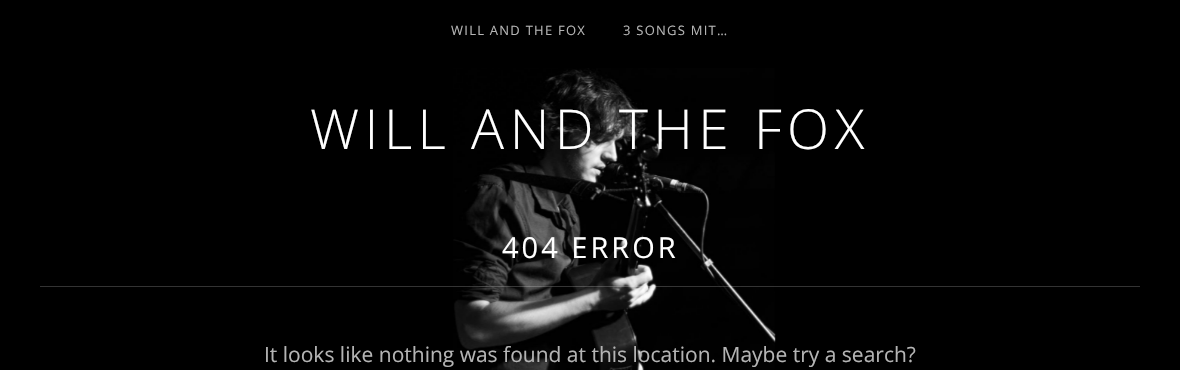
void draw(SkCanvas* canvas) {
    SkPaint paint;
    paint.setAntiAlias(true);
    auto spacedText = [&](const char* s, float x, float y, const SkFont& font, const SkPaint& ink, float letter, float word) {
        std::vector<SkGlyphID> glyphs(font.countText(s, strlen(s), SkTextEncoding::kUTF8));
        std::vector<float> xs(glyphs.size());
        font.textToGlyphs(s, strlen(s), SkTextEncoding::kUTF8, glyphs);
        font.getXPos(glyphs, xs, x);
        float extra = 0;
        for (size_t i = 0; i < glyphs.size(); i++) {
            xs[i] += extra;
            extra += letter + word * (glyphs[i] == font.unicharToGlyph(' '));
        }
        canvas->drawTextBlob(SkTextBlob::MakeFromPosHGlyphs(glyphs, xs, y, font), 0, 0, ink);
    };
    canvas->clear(0xFF000000);
    canvas->drawImageRect(SkImages::DeferredFromEncodedData(SkData::MakeFromFileName("img1.png")), SkRect::MakeXYWH(453, 68, 323, 302), SkSamplingOptions());
    SkFont font1(fontMgr->matchFamilyStyle("Open Sans", SkFontStyle::Normal()), 13);
    font1.setSubpixel(true);
    paint.setColor(0xFFB4B4B4);
    spacedText("WILL AND THE FOX", 451, 35, font1, paint, 1.25f, 0);
    spacedText("3 SONGS MIT…", 623, 35, font1, paint, 1.25f, 0);
    SkFont font2(fontMgr->matchFamilyStyle("Open Sans", SkFontStyle(300, SkFontStyle::kNormal_Width, SkFontStyle::kUpright_Slant)), 55);
    font2.setSubpixel(true);
    paint.setColor(0xFFFFFFFF);
    spacedText("WILL AND THE FOX", 310, 149, font2, paint, 5.5f, 0);
    paint.setColor(0x33FFFFFF);
    canvas->drawRect(SkRect::MakeXYWH(40, 286, 1100, 1), paint);
    SkFont font3(fontMgr->matchFamilyStyle("Open Sans", SkFontStyle::Normal()), 29);
    font3.setSubpixel(true);
    paint.setColor(0xFFFFFFFF);
    spacedText("404 ERROR", 502, 258, font3, paint, 3, 0);
    SkFont font4(fontMgr->matchFamilyStyle("Open Sans", SkFontStyle::Normal()), 21);
    font4.setSubpixel(true);
    paint.setColor(0xFFB4B4B4);
    canvas->drawString("It looks like nothing was found at this location. Maybe try a search?", 264, 362, font4, paint);
}
